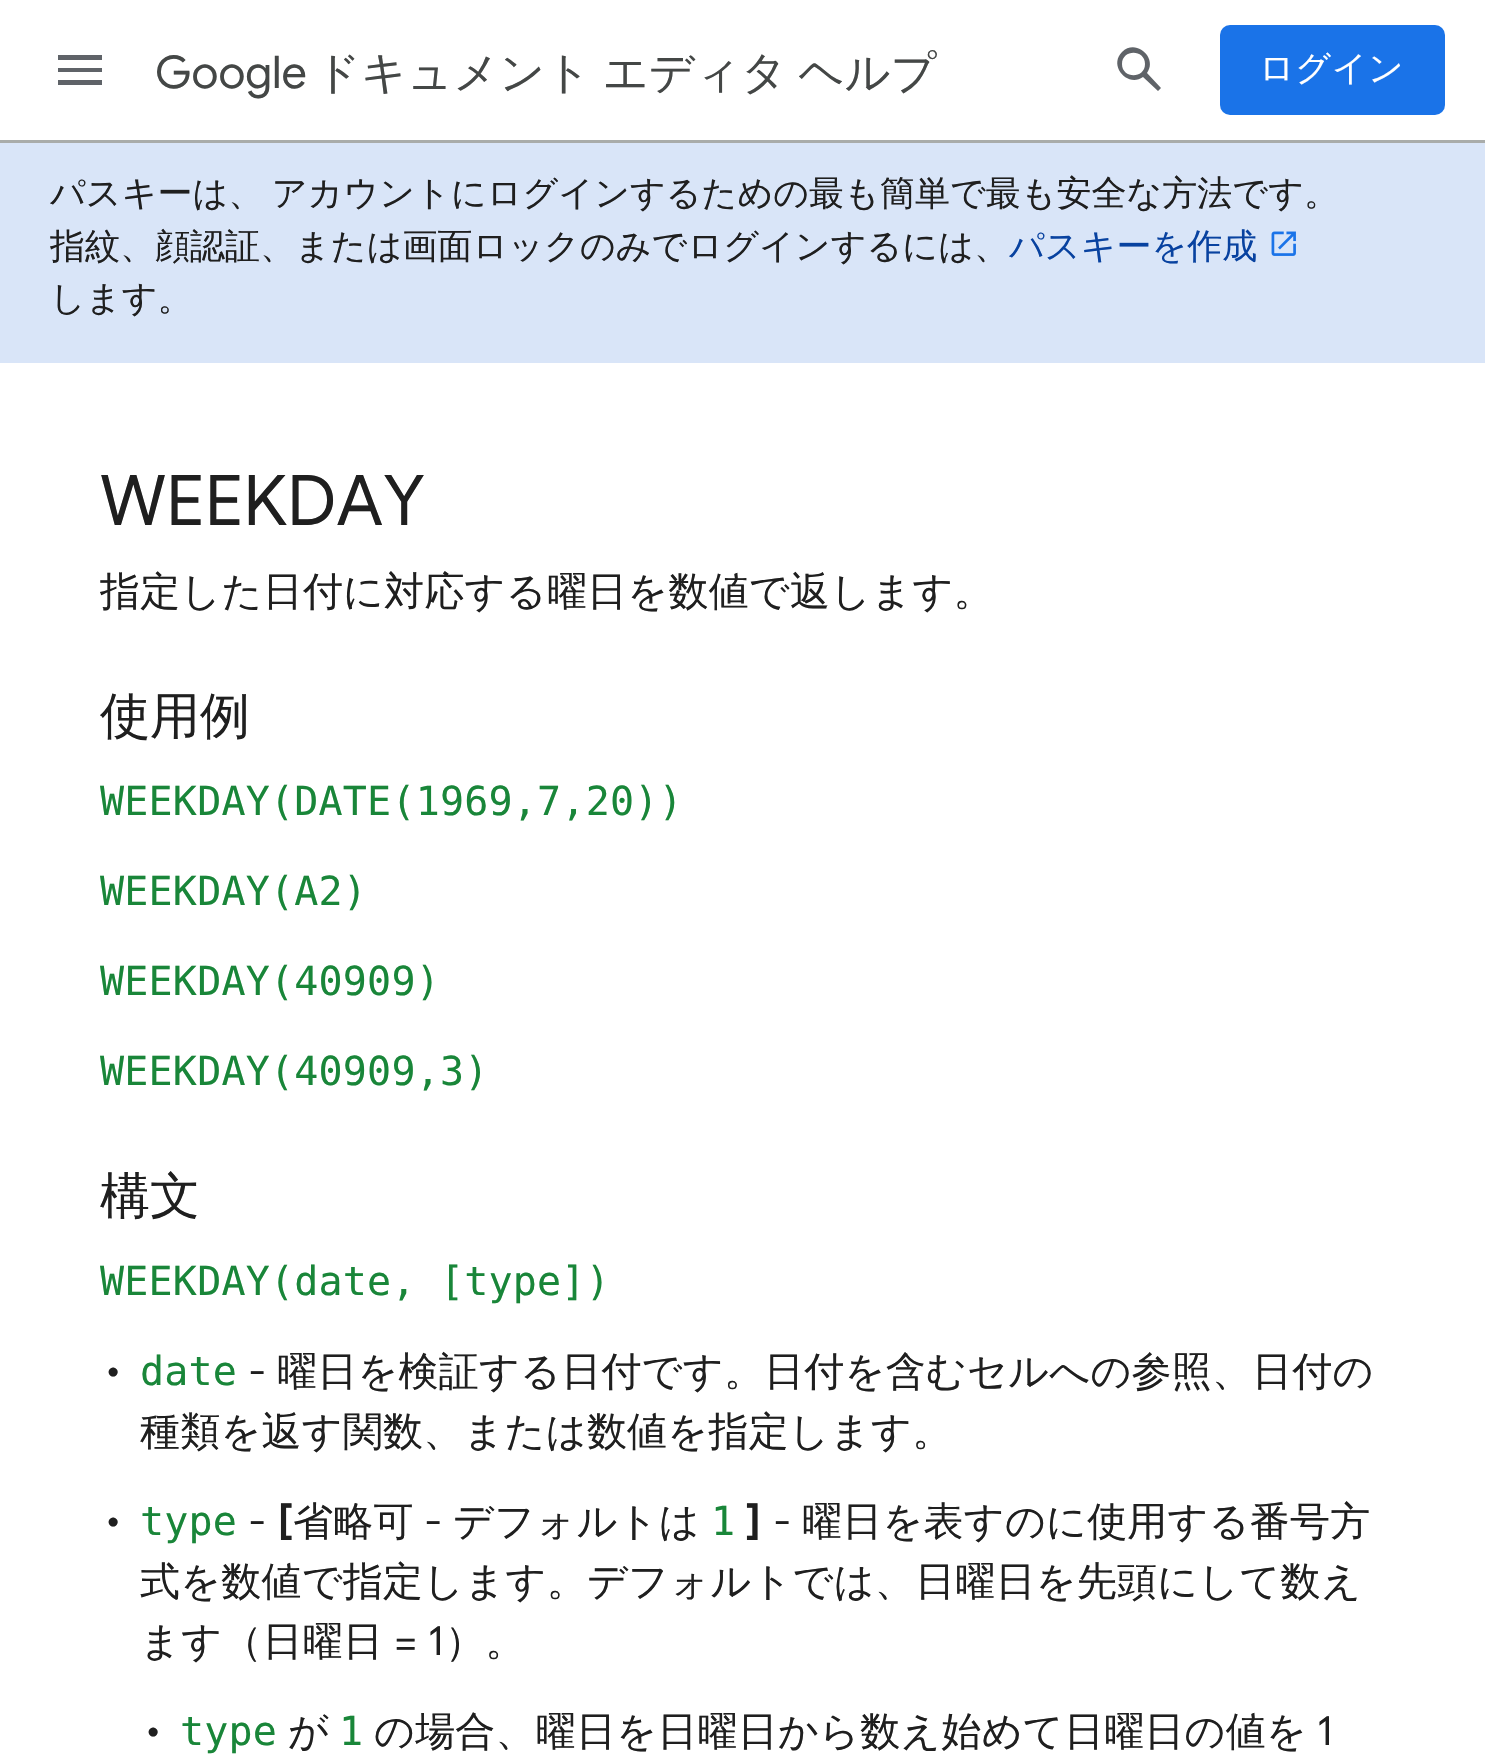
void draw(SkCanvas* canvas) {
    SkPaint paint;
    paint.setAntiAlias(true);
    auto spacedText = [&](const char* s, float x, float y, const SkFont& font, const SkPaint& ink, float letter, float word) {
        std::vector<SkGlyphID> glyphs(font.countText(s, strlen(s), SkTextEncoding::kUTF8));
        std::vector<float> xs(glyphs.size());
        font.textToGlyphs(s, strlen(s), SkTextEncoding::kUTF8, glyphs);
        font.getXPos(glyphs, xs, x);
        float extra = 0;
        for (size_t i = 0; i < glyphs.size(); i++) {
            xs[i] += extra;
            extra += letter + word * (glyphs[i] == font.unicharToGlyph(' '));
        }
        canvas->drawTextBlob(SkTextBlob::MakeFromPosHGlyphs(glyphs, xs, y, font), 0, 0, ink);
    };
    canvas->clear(0xFFFFFFFF);
    paint.setColor(0xFF5F6368);
    canvas->drawPath(SkPathBuilder().moveTo(58, 85).lineTo(102, 85).lineTo(102, 80).lineTo(58, 80).close().moveTo(58, 72).lineTo(102, 72).lineTo(102, 68).lineTo(58, 68).close().moveTo(58, 55).lineTo(58, 60).lineTo(102, 60).lineTo(102, 55).close().detach(), paint);
    SkFont font1(fontMgr->matchFamilyStyle("Google Sans", SkFontStyle::Normal()), 45);
    font1.setSubpixel(true);
    paint.setColor(0xFF444746);
    canvas->drawString("Google", 155, 88, font1, paint);
    SkFont font2(fontMgr->matchFamilyStyle("WenQuanYi Zen Hei", SkFontStyle(500, SkFontStyle::kNormal_Width, SkFontStyle::kUpright_Slant)), 45);
    font2.setSubpixel(true);
    spacedText("ドキュメント エディタ ヘルプ", 315, 88, font2, paint, 0, -2);
    paint.setColor(0xFF5F6368);
    canvas->drawPath(SkPathBuilder().moveTo(1161, 88).lineTo(1147, 73).cubicTo(1158, 58, 1136, 38, 1122, 52).cubicTo(1108, 66, 1128, 88, 1143, 77).lineTo(1158, 91).close().moveTo(1122, 64).cubicTo(1122, 49, 1145, 49, 1145, 64).cubicTo(1145, 79, 1122, 79, 1122, 64).close().detach(), paint);
    paint.setColor(0xFF1A73E8);
    canvas->drawRoundRect(SkRect::MakeXYWH(1220, 25, 225, 90), 10, 10, paint);
    SkFont font3(fontMgr->matchFamilyStyle("WenQuanYi Zen Hei", SkFontStyle(500, SkFontStyle::kNormal_Width, SkFontStyle::kUpright_Slant)), 35);
    font3.setSubpixel(true);
    paint.setColor(0xFFFFFFFF);
    spacedText("ログイン", 1259, 80, font3, paint, 0.5f, 0);
    paint.setColor(0xFFA9ACAA);
    canvas->drawRect(SkRect::MakeXYWH(0, 140, 1485, 3), paint);
    paint.setColor(0xFFD9E5F8);
    canvas->drawRect(SkRect::MakeXYWH(0, 143, 1485, 220), paint);
    paint.setColor(0xFF1F1F1F);
    spacedText("パスキーは、 アカウントにログインするための最も簡単で最も安全な方法です。", 50, 205, font3, paint, 0, -2);
    canvas->drawString("指紋、顔認証、または画面ロックのみでログインするには、", 50, 258, font3, paint);
    paint.setColor(0xFF0842A0);
    canvas->drawString("パスキーを作成", 1009, 258, font3, paint);
    canvas->drawImageRect(SkImages::DeferredFromEncodedData(SkData::MakeFromFileName("img1.png")), SkRect::MakeXYWH(1271, 231, 25, 25), SkSamplingOptions());
    paint.setColor(0xFF1F1F1F);
    canvas->drawString("します。", 50, 310, font3, paint);
    SkFont font4(fontMgr->matchFamilyStyle("Google Sans", SkFontStyle::Normal()), 70);
    font4.setSubpixel(true);
    canvas->drawString("WEEKDAY", 100, 525, font4, paint);
    SkFont font5(fontMgr->matchFamilyStyle("WenQuanYi Zen Hei", SkFontStyle(500, SkFontStyle::kNormal_Width, SkFontStyle::kUpright_Slant)), 40);
    font5.setSubpixel(true);
    spacedText("指定した日付に対応する曜日を数値で返します。", 100, 605, font5, paint, 0.2f, 0);
    SkFont font6(fontMgr->matchFamilyStyle("WenQuanYi Zen Hei", SkFontStyle(500, SkFontStyle::kNormal_Width, SkFontStyle::kUpright_Slant)), 50);
    font6.setSubpixel(true);
    canvas->drawString("使用例", 100, 733, font6, paint);
    SkFont font7(fontMgr->matchFamilyStyle("DejaVu Sans Mono", SkFontStyle::Normal()), 40);
    font7.setSubpixel(true);
    paint.setColor(0xFF198639);
    spacedText("WEEKDAY(DATE(1969,7,20))", 100, 815, font7, paint, 0.2f, 0);
    spacedText("WEEKDAY(A2)", 100, 905, font7, paint, 0.2f, 0);
    spacedText("WEEKDAY(40909)", 100, 995, font7, paint, 0.2f, 0);
    spacedText("WEEKDAY(40909,3)", 100, 1085, font7, paint, 0.2f, 0);
    paint.setColor(0xFF1F1F1F);
    canvas->drawString("構文", 100, 1213, font6, paint);
    paint.setColor(0xFF198639);
    spacedText("WEEKDAY(date, [type])", 100, 1295, font7, paint, 0.2f, 0);
    SkFont font8(fontMgr->matchFamilyStyle("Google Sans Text", SkFontStyle::Normal()), 40);
    font8.setSubpixel(true);
    paint.setColor(0xFF1F1F1F);
    spacedText("•", 105, 1385, font8, paint, 0.2f, 0);
    paint.setColor(0xFF198639);
    spacedText("date", 140, 1385, font7, paint, 0.2f, 0);
    paint.setColor(0xFF1F1F1F);
    spacedText("-", 248, 1385, font8, paint, 0.2f, 0);
    spacedText("曜日を検証する日付です。日付を含むセルへの参照、日付の", 277, 1385, font5, paint, 0.2f, 0);
    spacedText("種類を返す関数、または数値を指定します。", 140, 1445, font5, paint, 0.2f, 0);
    spacedText("•", 105, 1535, font8, paint, 0.2f, 0);
    paint.setColor(0xFF198639);
    spacedText("type", 140, 1535, font7, paint, 0.2f, 0);
    paint.setColor(0xFF1F1F1F);
    spacedText("-", 248, 1535, font8, paint, 0.2f, 0);
    SkFont font9(fontMgr->matchFamilyStyle("Google Sans Text", SkFontStyle::Bold()), 40);
    font9.setSubpixel(true);
    spacedText("[", 277, 1535, font9, paint, 0.2f, 0);
    spacedText("省略可", 293, 1535, font5, paint, 0.2f, 0);
    spacedText("-", 424, 1535, font8, paint, 0.2f, 0);
    spacedText("デフォルトは", 453, 1535, font5, paint, 0.2f, 0);
    paint.setColor(0xFF198639);
    spacedText("1", 711, 1535, font7, paint, 0.2f, 0);
    paint.setColor(0xFF1F1F1F);
    spacedText("]", 745, 1535, font9, paint, 0.2f, 0);
    spacedText("-", 773, 1535, font8, paint, 0.2f, 0);
    spacedText("曜日を表すのに使用する番号方", 802, 1535, font5, paint, 0.2f, 0);
    spacedText("式を数値で指定します。デフォルトでは、日曜日を先頭にして数え", 140, 1595, font5, paint, 0.2f, 0);
    spacedText("ます（日曜日", 140, 1655, font5, paint, 0.2f, 0);
    spacedText("= 1", 394, 1655, font8, paint, 0.2f, 0);
    spacedText("）。", 445, 1655, font5, paint, 0.2f, 0);
    spacedText("•", 145, 1745, font8, paint, 0.2f, 0);
    paint.setColor(0xFF198639);
    spacedText("type", 180, 1745, font7, paint, 0.2f, 0);
    paint.setColor(0xFF1F1F1F);
    spacedText("が", 288, 1745, font5, paint, 0.2f, 0);
    paint.setColor(0xFF198639);
    spacedText("1", 339, 1745, font7, paint, 0.2f, 0);
    paint.setColor(0xFF1F1F1F);
    spacedText("の場合、曜日を日曜日から数え始めて日曜日の値を", 374, 1745, font5, paint, 0.2f, 0);
    spacedText("1", 1317, 1745, font8, paint, 0.2f, 0);
}
